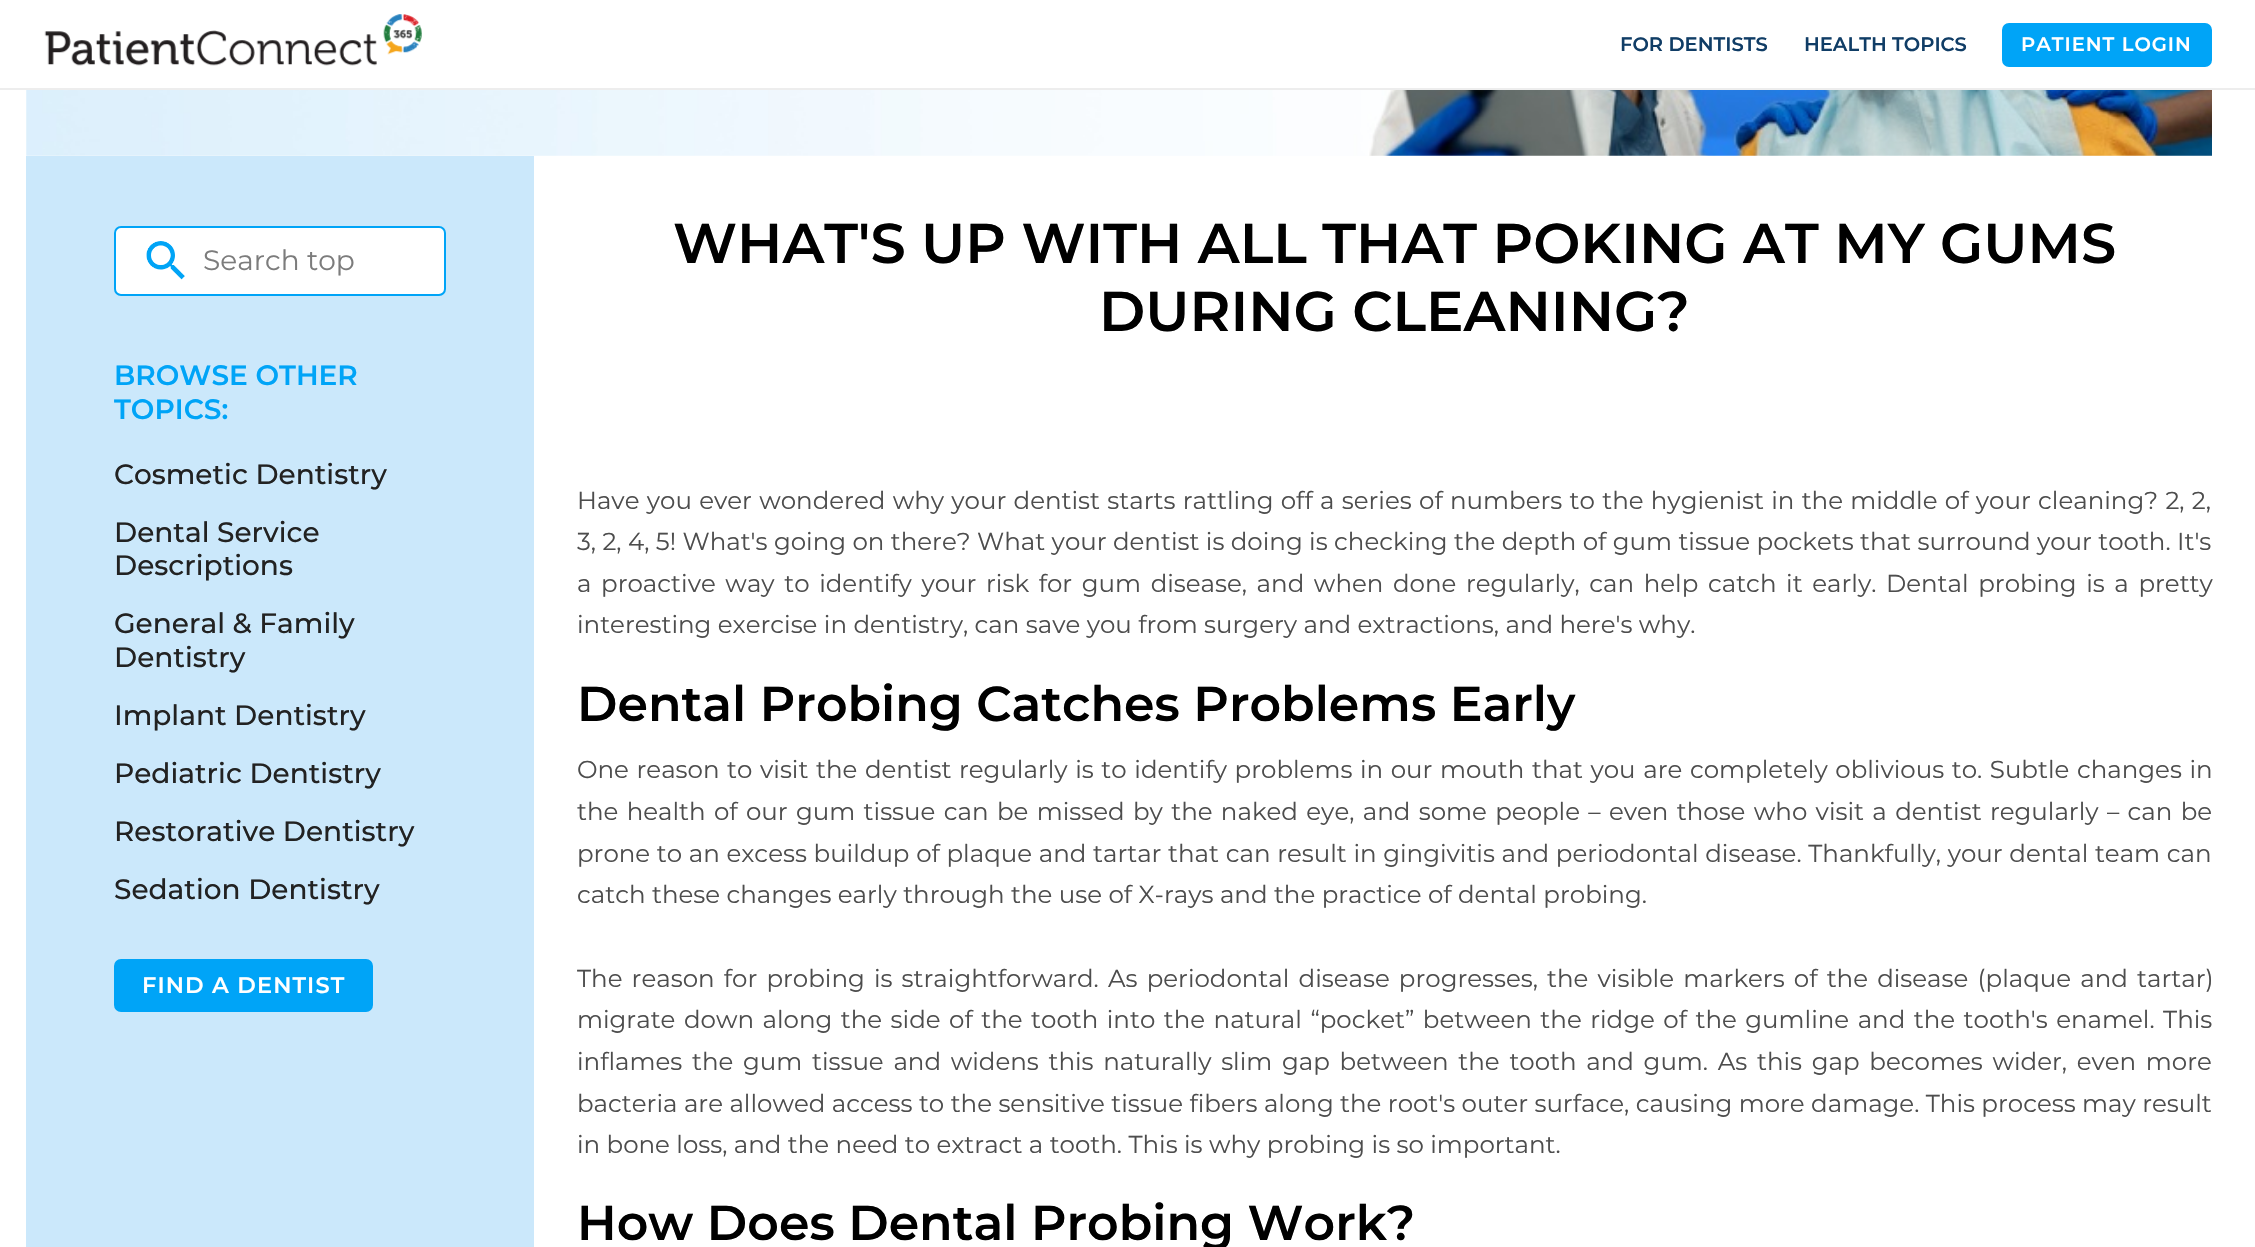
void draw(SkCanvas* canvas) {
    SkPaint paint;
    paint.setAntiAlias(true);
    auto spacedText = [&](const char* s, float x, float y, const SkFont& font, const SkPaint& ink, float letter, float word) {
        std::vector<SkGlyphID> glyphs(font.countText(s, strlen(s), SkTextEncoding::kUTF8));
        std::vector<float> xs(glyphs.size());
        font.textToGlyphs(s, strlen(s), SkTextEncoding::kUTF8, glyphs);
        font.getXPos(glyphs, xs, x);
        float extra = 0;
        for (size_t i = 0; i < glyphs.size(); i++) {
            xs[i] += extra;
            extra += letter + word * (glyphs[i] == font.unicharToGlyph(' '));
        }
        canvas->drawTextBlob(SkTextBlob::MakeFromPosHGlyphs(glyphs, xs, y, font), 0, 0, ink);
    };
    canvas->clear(0xFFFFFFFF);
    paint.setColor(0xFFEDEDED);
    canvas->drawRect(SkRect::MakeXYWH(0, 88, 2255, 2), paint);
    canvas->drawImageRect(SkImages::DeferredFromEncodedData(SkData::MakeFromFileName("img1.png")), SkRect::MakeXYWH(44, 14, 378, 52), SkSamplingOptions());
    SkFont font1(fontMgr->matchFamilyStyle("Montserrat", SkFontStyle(600, SkFontStyle::kNormal_Width, SkFontStyle::kUpright_Slant)), 19.5f);
    font1.setSubpixel(true);
    paint.setColor(0xFF103D66);
    canvas->drawString("FOR DENTISTS", 1620, 51, font1, paint);
    canvas->drawString("HEALTH TOPICS", 1804, 51, font1, paint);
    paint.setColor(0xFF00A4F7);
    canvas->drawRoundRect(SkRect::MakeXYWH(2003, 24, 208, 42), 6, 6, paint);
    paint.setStyle(SkPaint::kStroke_Style);
    paint.setStrokeWidth(2);
    canvas->drawRoundRect(SkRect::MakeXYWH(2003, 24, 208, 42), 6, 6, paint);
    paint.setStyle(SkPaint::kFill_Style);
    paint.setColor(0xFFFFFFFF);
    spacedText("PATIENT LOGIN", 2021, 51, font1, paint, 1, 0);
    canvas->drawImageRect(SkImages::DeferredFromEncodedData(SkData::MakeFromFileName("img2.png")), SkRect::MakeXYWH(26, 90, 2186, 66), SkSamplingOptions());
    paint.setColor(0xFFCBE8FB);
    canvas->drawRect(SkRect::MakeXYWH(26, 156, 508, 1091), paint);
    paint.setColor(0xFFFFFFFF);
    canvas->drawRoundRect(SkRect::MakeXYWH(115, 227, 330, 68), 6, 6, paint);
    paint.setStyle(SkPaint::kStroke_Style);
    paint.setColor(0xFF00A4F7);
    canvas->drawRoundRect(SkRect::MakeXYWH(115, 227, 330, 68), 6, 6, paint);
    canvas->drawImageRect(SkImages::DeferredFromEncodedData(SkData::MakeFromFileName("img3.png")), SkRect::MakeXYWH(146, 241, 39, 39), SkSamplingOptions());
    SkFont font2(fontMgr->matchFamilyStyle("Montserrat", SkFontStyle::Normal()), 28);
    font2.setSubpixel(true);
    paint.setStyle(SkPaint::kFill_Style);
    paint.setColor(0xFF7C7C7C);
    canvas->drawString("Search top", 203, 270, font2, paint);
    SkFont font3(fontMgr->matchFamilyStyle("Montserrat", SkFontStyle(600, SkFontStyle::kNormal_Width, SkFontStyle::kUpright_Slant)), 28);
    font3.setSubpixel(true);
    paint.setColor(0xFF00A4F7);
    canvas->drawString("BROWSE OTHER", 114, 385, font3, paint);
    canvas->drawString("TOPICS:", 114, 419, font3, paint);
    SkFont font4(fontMgr->matchFamilyStyle("Montserrat", SkFontStyle(500, SkFontStyle::kNormal_Width, SkFontStyle::kUpright_Slant)), 28);
    font4.setSubpixel(true);
    paint.setColor(0xFF222222);
    canvas->drawString("Cosmetic Dentistry", 114, 484, font4, paint);
    canvas->drawString("Dental Service", 114, 542, font4, paint);
    canvas->drawString("Descriptions", 114, 575, font4, paint);
    canvas->drawString("General & Family", 114, 633, font4, paint);
    canvas->drawString("Dentistry", 114, 667, font4, paint);
    canvas->drawString("Implant Dentistry", 114, 725, font4, paint);
    canvas->drawString("Pediatric Dentistry", 114, 783, font4, paint);
    canvas->drawString("Restorative Dentistry", 114, 841, font4, paint);
    canvas->drawString("Sedation Dentistry", 114, 899, font4, paint);
    paint.setColor(0xFF00A4F7);
    canvas->drawRoundRect(SkRect::MakeXYWH(115, 960, 257, 51), 6, 6, paint);
    paint.setStyle(SkPaint::kStroke_Style);
    canvas->drawRoundRect(SkRect::MakeXYWH(115, 960, 257, 51), 6, 6, paint);
    SkFont font5(fontMgr->matchFamilyStyle("Montserrat", SkFontStyle(600, SkFontStyle::kNormal_Width, SkFontStyle::kUpright_Slant)), 22.5f);
    font5.setSubpixel(true);
    paint.setStyle(SkPaint::kFill_Style);
    paint.setColor(0xFFFFFFFF);
    spacedText("FIND A DENTIST", 142, 993, font5, paint, 1.1f, 0);
    SkFont font6(fontMgr->matchFamilyStyle("Montserrat", SkFontStyle(600, SkFontStyle::kNormal_Width, SkFontStyle::kUpright_Slant)), 56);
    font6.setSubpixel(true);
    paint.setColor(0xFF000000);
    canvas->drawString("WHAT'S UP WITH ALL THAT POKING AT MY GUMS", 673, 263, font6, paint);
    canvas->drawString("DURING CLEANING?", 1099, 331, font6, paint);
    SkFont font7(fontMgr->matchFamilyStyle("Montserrat", SkFontStyle::Normal()), 24.5f);
    font7.setSubpixel(true);
    paint.setColor(0xFF4D4D4D);
    spacedText("Have you ever wondered why your dentist starts rattling off a series of numbers to the hygienist in the middle of your cleaning? 2, 2,", 577, 509, font7, paint, 0, 0.9f);
    canvas->drawString("3, 2, 4, 5! What's going on there? What your dentist is doing is checking the depth of gum tissue pockets that surround your tooth. It's", 577, 550, font7, paint);
    spacedText("a proactive way to identify your risk for gum disease, and when done regularly, can help catch it early. Dental probing is a pretty", 577, 592, font7, paint, 0, 3.2f);
    canvas->drawString("interesting exercise in dentistry, can save you from surgery and extractions, and here's why.", 577, 633, font7, paint);
    SkFont font8(fontMgr->matchFamilyStyle("Montserrat", SkFontStyle(600, SkFontStyle::kNormal_Width, SkFontStyle::kUpright_Slant)), 49);
    font8.setSubpixel(true);
    paint.setColor(0xFF000000);
    canvas->drawString("Dental Probing Catches Problems Early", 577, 721, font8, paint);
    paint.setColor(0xFF4D4D4D);
    spacedText("One reason to visit the dentist regularly is to identify problems in our mouth that you are completely oblivious to. Subtle changes in", 577, 778, font7, paint, 0, 1.2f);
    spacedText("the health of our gum tissue can be missed by the naked eye, and some people – even those who visit a dentist regularly – can be", 577, 820, font7, paint, 0, 1.95f);
    spacedText("prone to an excess buildup of plaque and tartar that can result in gingivitis and periodontal disease. Thankfully, your dental team can", 577, 862, font7, paint, 0, 0.25f);
    canvas->drawString("catch these changes early through the use of X-rays and the practice of dental probing.", 577, 903, font7, paint);
    spacedText("The reason for probing is straightforward. As periodontal disease progresses, the visible markers of the disease (plaque and tartar)", 577, 987, font7, paint, 0, 2.75f);
    spacedText("migrate down along the side of the tooth into the natural “pocket” between the ridge of the gumline and the tooth's enamel. This", 577, 1028, font7, paint, 0, 2.1f);
    spacedText("inflames the gum tissue and widens this naturally slim gap between the tooth and gum. As this gap becomes wider, even more", 577, 1070, font7, paint, 0, 3.3f);
    canvas->drawString("bacteria are allowed access to the sensitive tissue fibers along the root's outer surface, causing more damage. This process may result", 577, 1112, font7, paint);
    canvas->drawString("in bone loss, and the need to extract a tooth. This is why probing is so important.", 577, 1153, font7, paint);
    paint.setColor(0xFF000000);
    canvas->drawString("How Does Dental Probing Work?", 577, 1240, font8, paint);
}
